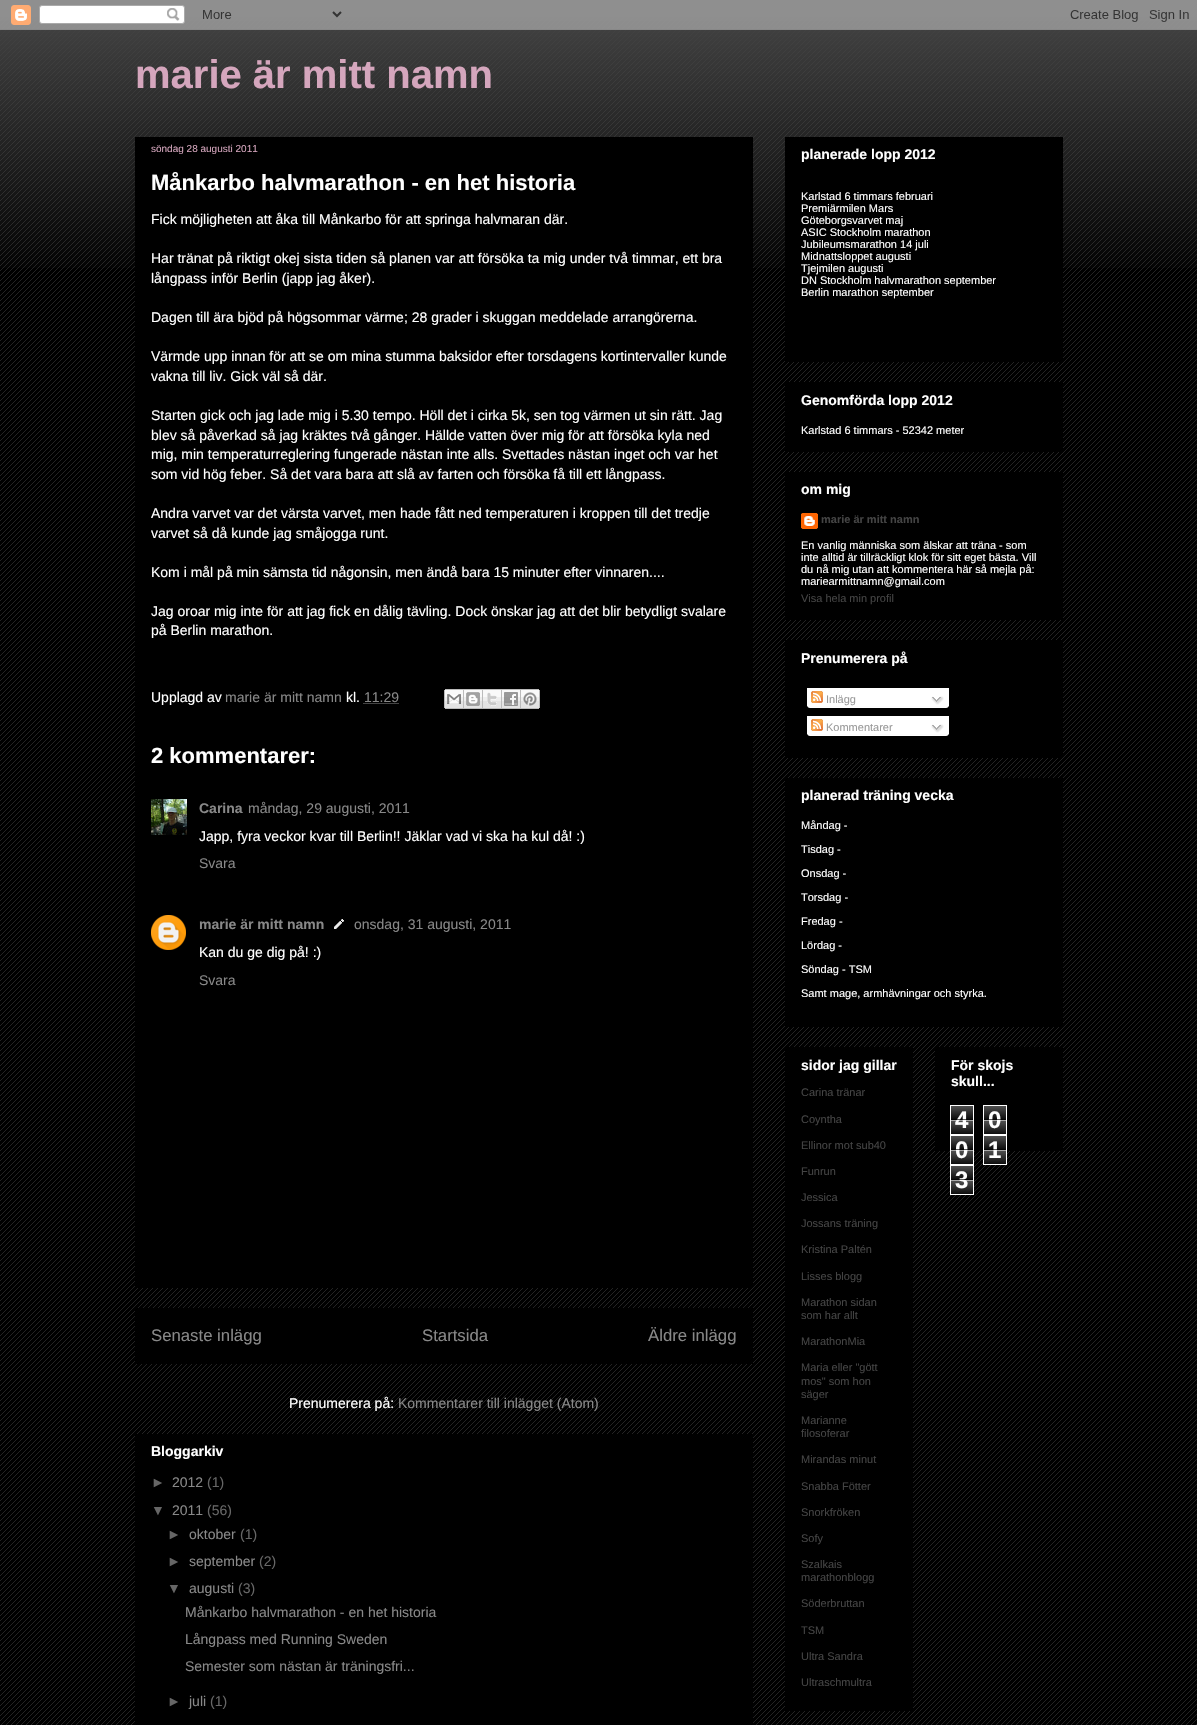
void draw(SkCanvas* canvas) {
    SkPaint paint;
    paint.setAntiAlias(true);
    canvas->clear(0xFF000000);
    canvas->drawImageRect(SkImages::DeferredFromEncodedData(SkData::MakeFromFileName("img1.png")), SkRect::MakeXYWH(0, 13, 1197, 1712), SkSamplingOptions());
    canvas->drawImageRect(SkImages::DeferredFromEncodedData(SkData::MakeFromFileName("img2.png")), SkRect::MakeXYWH(0, 0, 1197, 268), SkSamplingOptions());
    canvas->drawImageRect(SkImages::DeferredFromEncodedData(SkData::MakeFromFileName("img3.png")), SkRect::MakeXYWH(0, 0, 1197, 30), SkSamplingOptions());
    SkFont font1(fontMgr->matchFamilyStyle("Liberation Sans", SkFontStyle::Bold()), 40);
    font1.setSubpixel(true);
    paint.setColor(0xFFD5A6BD);
    canvas->drawString("marie är mitt namn", 135, 88, font1, paint);
    paint.setColor(0xFF000000);
    canvas->drawRect(SkRect::MakeXYWH(135, 137, 618, 1151), paint);
    SkFont font2(fontMgr->matchFamilyStyle("Liberation Sans", SkFontStyle::Normal()), 10);
    font2.setSubpixel(true);
    paint.setColor(0xFFD5A6BD);
    canvas->drawString("söndag 28 augusti 2011", 151, 152, font2, paint);
    SkFont font3(fontMgr->matchFamilyStyle("Liberation Sans", SkFontStyle::Bold()), 22);
    font3.setSubpixel(true);
    paint.setColor(0xFFFFFFFF);
    canvas->drawString("Månkarbo halvmarathon - en het historia", 151, 190, font3, paint);
    SkFont font4(fontMgr->matchFamilyStyle("Liberation Sans", SkFontStyle::Normal()), 14);
    font4.setSubpixel(true);
    canvas->drawString("Fick möjligheten att åka till Månkarbo för att springa halvmaran där.", 151, 224, font4, paint);
    canvas->drawString("Har tränat på riktigt okej sista tiden så planen var att försöka ta mig under två timmar, ett bra", 151, 263, font4, paint);
    canvas->drawString("långpass inför Berlin (japp jag åker).", 151, 283, font4, paint);
    canvas->drawString("Dagen till ära bjöd på högsommar värme; 28 grader i skuggan meddelade arrangörerna.", 151, 322, font4, paint);
    canvas->drawString("Värmde upp innan för att se om mina stumma baksidor efter torsdagens kortintervaller kunde", 151, 361, font4, paint);
    canvas->drawString("vakna till liv. Gick väl så där.", 151, 381, font4, paint);
    canvas->drawString("Starten gick och jag lade mig i 5.30 tempo. Höll det i cirka 5k, sen tog värmen ut sin rätt. Jag", 151, 420, font4, paint);
    canvas->drawString("blev så påverkad så jag kräktes två gånger. Hällde vatten över mig för att försöka kyla ned", 151, 440, font4, paint);
    canvas->drawString("mig, min temperaturreglering fungerade nästan inte alls. Svettades nästan inget och var het", 151, 459, font4, paint);
    canvas->drawString("som vid hög feber. Så det vara bara att slå av farten och försöka få till ett långpass.", 151, 479, font4, paint);
    canvas->drawString("Andra varvet var det värsta varvet, men hade fått ned temperaturen i kroppen till det tredje", 151, 518, font4, paint);
    canvas->drawString("varvet så då kunde jag småjogga runt.", 151, 538, font4, paint);
    canvas->drawString("Kom i mål på min sämsta tid någonsin, men ändå bara 15 minuter efter vinnaren....", 151, 577, font4, paint);
    canvas->drawString("Jag oroar mig inte för att jag fick en dålig tävling. Dock önskar jag att det blir betydligt svalare", 151, 616, font4, paint);
    canvas->drawString("på Berlin marathon.", 151, 635, font4, paint);
    canvas->drawString("Upplagd av", 151, 702, font4, paint);
    paint.setColor(0xFF888888);
    canvas->drawString("marie är mitt namn", 225, 702, font4, paint);
    paint.setColor(0xFFFFFFFF);
    canvas->drawString("kl.", 346, 702, font4, paint);
    paint.setColor(0xFF888888);
    canvas->drawString("11:29", 364, 702, font4, paint);
    paint.setStyle(SkPaint::kStroke_Style);
    paint.setStrokeWidth(1);
    paint.setPathEffect(SkDashPathEffect::Make({{1, 1}}, 0));
    canvas->drawPath(SkPathBuilder().moveTo(363.5f, 703.5f).lineTo(399, 703.5f).detach(), paint);
    paint.setPathEffect(nullptr);
    canvas->drawImageRect(SkImages::DeferredFromEncodedData(SkData::MakeFromFileName("img4.png")), SkRect::MakeXYWH(444, 689, 20, 20), SkSamplingOptions());
    canvas->drawImageRect(SkImages::DeferredFromEncodedData(SkData::MakeFromFileName("img5.png")), SkRect::MakeXYWH(464, 689, 19, 20), SkSamplingOptions());
    canvas->drawImageRect(SkImages::DeferredFromEncodedData(SkData::MakeFromFileName("img6.png")), SkRect::MakeXYWH(483, 689, 19, 20), SkSamplingOptions());
    canvas->drawImageRect(SkImages::DeferredFromEncodedData(SkData::MakeFromFileName("img7.png")), SkRect::MakeXYWH(502, 689, 19, 20), SkSamplingOptions());
    canvas->drawImageRect(SkImages::DeferredFromEncodedData(SkData::MakeFromFileName("img8.png")), SkRect::MakeXYWH(521, 689, 19, 20), SkSamplingOptions());
    paint.setStyle(SkPaint::kFill_Style);
    paint.setColor(0xFFFFFFFF);
    canvas->drawString("2 kommentarer:", 151, 763, font3, paint);
    canvas->drawImageRect(SkImages::DeferredFromEncodedData(SkData::MakeFromFileName("img9.png")), SkRect::MakeXYWH(151, 799, 36, 36), SkSamplingOptions());
    SkFont font5(fontMgr->matchFamilyStyle("Liberation Sans", SkFontStyle::Bold()), 14);
    font5.setSubpixel(true);
    paint.setColor(0xFF888888);
    canvas->drawString("Carina", 199, 813, font5, paint);
    canvas->drawString("måndag, 29 augusti, 2011", 248, 813, font4, paint);
    paint.setColor(0xFFFFFFFF);
    canvas->drawString("Japp, fyra veckor kvar till Berlin!! Jäklar vad vi ska ha kul då! :)", 199, 841, font4, paint);
    paint.setColor(0xFF888888);
    canvas->drawString("Svara", 199, 868, font4, paint);
    canvas->drawImageRect(SkImages::DeferredFromEncodedData(SkData::MakeFromFileName("img10.png")), SkRect::MakeXYWH(151, 915, 35, 35), SkSamplingOptions());
    canvas->drawString("marie är mitt namn", 199, 929, font5, paint);
    canvas->drawImageRect(SkImages::DeferredFromEncodedData(SkData::MakeFromFileName("img11.png")), SkRect::MakeXYWH(334, 919, 10, 10), SkSamplingOptions());
    canvas->drawString("onsdag, 31 augusti, 2011", 354, 929, font4, paint);
    paint.setColor(0xFFFFFFFF);
    canvas->drawString("Kan du ge dig på! :)", 199, 957, font4, paint);
    paint.setColor(0xFF888888);
    canvas->drawString("Svara", 199, 985, font4, paint);
    paint.setColor(0xFF000000);
    canvas->drawRect(SkRect::MakeXYWH(135, 1308, 618, 56), paint);
    SkFont font6(fontMgr->matchFamilyStyle("Liberation Sans", SkFontStyle::Normal()), 16.75f);
    font6.setSubpixel(true);
    paint.setColor(0xFF888888);
    canvas->drawString("Senaste inlägg", 151, 1341, font6, paint);
    canvas->drawString("Startsida", 422, 1341, font6, paint);
    canvas->drawString("Äldre inlägg", 648, 1341, font6, paint);
    paint.setColor(0xFFFFFFFF);
    canvas->drawString("Prenumerera på:", 289, 1408, font4, paint);
    paint.setColor(0xFF888888);
    canvas->drawString("Kommentarer till inlägget (Atom)", 398, 1408, font4, paint);
    paint.setColor(0xFF000000);
    canvas->drawRect(SkRect::MakeXYWH(135, 1434, 618, 291), paint);
    paint.setColor(0xFFFFFFFF);
    canvas->drawString("Bloggarkiv", 151, 1456, font5, paint);
    paint.setColor(0xFF666666);
    canvas->drawString("►", 151, 1487, font4, paint);
    paint.setColor(0xFF888888);
    canvas->drawString("2012", 172, 1487, font4, paint);
    paint.setColor(0xFF666666);
    canvas->drawString("(1)", 207, 1487, font4, paint);
    canvas->drawString("▼", 151, 1515, font4, paint);
    paint.setColor(0xFF888888);
    canvas->drawString("2011", 172, 1515, font4, paint);
    paint.setColor(0xFF666666);
    canvas->drawString("(56)", 207, 1515, font4, paint);
    canvas->drawString("►", 167, 1539, font4, paint);
    paint.setColor(0xFF888888);
    canvas->drawString("oktober", 189, 1539, font4, paint);
    paint.setColor(0xFF666666);
    canvas->drawString("(1)", 240, 1539, font4, paint);
    canvas->drawString("►", 167, 1566, font4, paint);
    paint.setColor(0xFF888888);
    canvas->drawString("september", 189, 1566, font4, paint);
    paint.setColor(0xFF666666);
    canvas->drawString("(2)", 259, 1566, font4, paint);
    canvas->drawString("▼", 167, 1593, font4, paint);
    paint.setColor(0xFF888888);
    canvas->drawString("augusti", 189, 1593, font4, paint);
    paint.setColor(0xFF666666);
    canvas->drawString("(3)", 238, 1593, font4, paint);
    paint.setColor(0xFF888888);
    canvas->drawString("Månkarbo halvmarathon - en het historia", 185, 1617, font4, paint);
    canvas->drawString("Långpass med Running Sweden", 185, 1644, font4, paint);
    canvas->drawString("Semester som nästan är träningsfri...", 185, 1671, font4, paint);
    paint.setColor(0xFF666666);
    canvas->drawString("►", 167, 1706, font4, paint);
    paint.setColor(0xFF888888);
    canvas->drawString("juli", 189, 1706, font4, paint);
    paint.setColor(0xFF666666);
    canvas->drawString("(1)", 210, 1706, font4, paint);
    paint.setColor(0xFF000000);
    canvas->drawRect(SkRect::MakeXYWH(785, 137, 278, 225), paint);
    paint.setColor(0xFFFFFFFF);
    canvas->drawString("planerade lopp 2012", 801, 159, font5, paint);
    SkFont font7(fontMgr->matchFamilyStyle("Liberation Sans", SkFontStyle::Normal()), 11);
    font7.setSubpixel(true);
    canvas->drawString("Karlstad 6 timmars februari", 801, 200, font7, paint);
    canvas->drawString("Premiärmilen Mars", 801, 212, font7, paint);
    canvas->drawString("Göteborgsvarvet maj", 801, 224, font7, paint);
    canvas->drawString("ASIC Stockholm marathon", 801, 236, font7, paint);
    canvas->drawString("Jubileumsmarathon 14 juli", 801, 248, font7, paint);
    canvas->drawString("Midnattsloppet augusti", 801, 260, font7, paint);
    canvas->drawString("Tjejmilen augusti", 801, 272, font7, paint);
    canvas->drawString("DN Stockholm halvmarathon september", 801, 284, font7, paint);
    canvas->drawString("Berlin marathon september", 801, 296, font7, paint);
    paint.setColor(0xFF000000);
    canvas->drawRect(SkRect::MakeXYWH(785, 382, 278, 70), paint);
    paint.setColor(0xFFFFFFFF);
    canvas->drawString("Genomförda lopp 2012", 801, 405, font5, paint);
    canvas->drawString("Karlstad 6 timmars - 52342 meter", 801, 434, font7, paint);
    paint.setColor(0xFF000000);
    canvas->drawRect(SkRect::MakeXYWH(785, 472, 278, 148), paint);
    paint.setColor(0xFFFFFFFF);
    canvas->drawString("om mig", 801, 494, font5, paint);
    canvas->drawImageRect(SkImages::DeferredFromEncodedData(SkData::MakeFromFileName("img12.png")), SkRect::MakeXYWH(801, 513, 17, 16), SkSamplingOptions());
    SkFont font8(fontMgr->matchFamilyStyle("Liberation Sans", SkFontStyle::Bold()), 11);
    font8.setSubpixel(true);
    paint.setColor(0xFF444444);
    canvas->drawString("marie är mitt namn", 821, 523, font8, paint);
    paint.setColor(0xFFFFFFFF);
    canvas->drawString("En vanlig människa som älskar att träna - som", 801, 549, font7, paint);
    canvas->drawString("inte alltid är tillräckligt klok för sitt eget bästa. Vill", 801, 561, font7, paint);
    canvas->drawString("du nå mig utan att kommentera här så mejla på:", 801, 573, font7, paint);
    canvas->drawString("mariearmittnamn@gmail.com", 801, 585, font7, paint);
    paint.setColor(0xFF444444);
    canvas->drawString("Visa hela min profil", 801, 602, font7, paint);
    paint.setColor(0xFF000000);
    canvas->drawRect(SkRect::MakeXYWH(785, 640, 278, 118), paint);
    paint.setColor(0xFFFFFFFF);
    canvas->drawString("Prenumerera på", 801, 663, font5, paint);
    canvas->drawRect(SkRect::MakeXYWH(807, 688, 142, 18), paint);
    canvas->drawImageRect(SkImages::DeferredFromEncodedData(SkData::MakeFromFileName("img13.png")), SkRect::MakeXYWH(811, 691, 12, 12), SkSamplingOptions());
    paint.setColor(0xFF999999);
    canvas->drawString("Inlägg", 826, 703, font7, paint);
    canvas->drawImageRect(SkImages::DeferredFromEncodedData(SkData::MakeFromFileName("img14.png")), SkRect::MakeXYWH(931, 696, 13, 9), SkSamplingOptions());
    canvas->drawImageRect(SkImages::DeferredFromEncodedData(SkData::MakeFromFileName("img15.png")), SkRect::MakeXYWH(807, 706, 142, 2), SkSamplingOptions());
    paint.setColor(0xFFFFFFFF);
    canvas->drawRect(SkRect::MakeXYWH(807, 716, 142, 18), paint);
    canvas->drawImageRect(SkImages::DeferredFromEncodedData(SkData::MakeFromFileName("img13.png")), SkRect::MakeXYWH(811, 719, 12, 12), SkSamplingOptions());
    paint.setColor(0xFF999999);
    canvas->drawString("Kommentarer", 826, 731, font7, paint);
    canvas->drawImageRect(SkImages::DeferredFromEncodedData(SkData::MakeFromFileName("img14.png")), SkRect::MakeXYWH(931, 724, 13, 9), SkSamplingOptions());
    canvas->drawImageRect(SkImages::DeferredFromEncodedData(SkData::MakeFromFileName("img15.png")), SkRect::MakeXYWH(807, 734, 142, 2), SkSamplingOptions());
    paint.setColor(0xFF000000);
    canvas->drawRect(SkRect::MakeXYWH(785, 778, 278, 249), paint);
    paint.setColor(0xFFFFFFFF);
    canvas->drawString("planerad träning vecka", 801, 800, font5, paint);
    canvas->drawString("Måndag -", 801, 829, font7, paint);
    canvas->drawString("Tisdag -", 801, 853, font7, paint);
    canvas->drawString("Onsdag -", 801, 877, font7, paint);
    canvas->drawString("Torsdag -", 801, 901, font7, paint);
    canvas->drawString("Fredag -", 801, 925, font7, paint);
    canvas->drawString("Lördag -", 801, 949, font7, paint);
    canvas->drawString("Söndag - TSM", 801, 973, font7, paint);
    canvas->drawString("Samt mage, armhävningar och styrka.", 801, 997, font7, paint);
    paint.setColor(0xFF000000);
    canvas->drawRect(SkRect::MakeXYWH(785, 1047, 128, 664), paint);
    paint.setColor(0xFFFFFFFF);
    canvas->drawString("sidor jag gillar", 801, 1070, font5, paint);
    paint.setColor(0xFF444444);
    canvas->drawString("Carina tränar", 801, 1096, font7, paint);
    canvas->drawString("Coyntha", 801, 1123, font7, paint);
    canvas->drawString("Ellinor mot sub40", 801, 1149, font7, paint);
    canvas->drawString("Funrun", 801, 1175, font7, paint);
    canvas->drawString("Jessica", 801, 1201, font7, paint);
    canvas->drawString("Jossans träning", 801, 1227, font7, paint);
    canvas->drawString("Kristina Paltén", 801, 1253, font7, paint);
    canvas->drawString("Lisses blogg", 801, 1280, font7, paint);
    canvas->drawString("Marathon sidan", 801, 1306, font7, paint);
    canvas->drawString("som har allt", 801, 1319, font7, paint);
    canvas->drawString("MarathonMia", 801, 1345, font7, paint);
    canvas->drawString("Maria eller \"gött", 801, 1371, font7, paint);
    canvas->drawString("mos\" som hon", 801, 1385, font7, paint);
    canvas->drawString("säger", 801, 1398, font7, paint);
    canvas->drawString("Marianne", 801, 1424, font7, paint);
    canvas->drawString("filosoferar", 801, 1437, font7, paint);
    canvas->drawString("Mirandas minut", 801, 1463, font7, paint);
    canvas->drawString("Snabba Fötter", 801, 1490, font7, paint);
    canvas->drawString("Snorkfröken", 801, 1516, font7, paint);
    canvas->drawString("Sofy", 801, 1542, font7, paint);
    canvas->drawString("Szalkais", 801, 1568, font7, paint);
    canvas->drawString("marathonblogg", 801, 1581, font7, paint);
    canvas->drawString("Söderbruttan", 801, 1607, font7, paint);
    canvas->drawString("TSM", 801, 1634, font7, paint);
    canvas->drawString("Ultra Sandra", 801, 1660, font7, paint);
    canvas->drawString("Ultraschmultra", 801, 1686, font7, paint);
    paint.setColor(0xFF000000);
    canvas->drawRect(SkRect::MakeXYWH(935, 1047, 128, 104), paint);
    paint.setColor(0xFFFFFFFF);
    canvas->drawString("För skojs", 951, 1070, font5, paint);
    canvas->drawString("skull...", 951, 1086, font5, paint);
    canvas->drawImageRect(SkImages::DeferredFromEncodedData(SkData::MakeFromFileName("img16.png")), SkRect::MakeXYWH(951, 1106, 22, 28), SkSamplingOptions());
    paint.setStyle(SkPaint::kStroke_Style);
    canvas->drawRect(SkRect::MakeXYWH(950.5f, 1105.5f, 23, 29), paint);
    SkFont font9(fontMgr->matchFamilyStyle("Liberation Sans", SkFontStyle::Bold()), 24);
    font9.setSubpixel(true);
    paint.setStyle(SkPaint::kFill_Style);
    canvas->drawString("4", 955, 1128, font9, paint);
    paint.setColor(0xA6000000);
    canvas->drawRect(SkRect::MakeXYWH(951, 1119, 22, 1), paint);
    paint.setColor(0xA6FFFFFF);
    canvas->drawRect(SkRect::MakeXYWH(951, 1120, 22, 1), paint);
    canvas->drawImageRect(SkImages::DeferredFromEncodedData(SkData::MakeFromFileName("img16.png")), SkRect::MakeXYWH(984, 1106, 22, 28), SkSamplingOptions());
    paint.setStyle(SkPaint::kStroke_Style);
    paint.setColor(0xFFFFFFFF);
    canvas->drawRect(SkRect::MakeXYWH(983.5f, 1105.5f, 23, 29), paint);
    paint.setStyle(SkPaint::kFill_Style);
    canvas->drawString("0", 988, 1128, font9, paint);
    paint.setColor(0xA6000000);
    canvas->drawRect(SkRect::MakeXYWH(984, 1119, 22, 1), paint);
    paint.setColor(0xA6FFFFFF);
    canvas->drawRect(SkRect::MakeXYWH(984, 1120, 22, 1), paint);
    canvas->drawImageRect(SkImages::DeferredFromEncodedData(SkData::MakeFromFileName("img16.png")), SkRect::MakeXYWH(951, 1136, 22, 28), SkSamplingOptions());
    paint.setStyle(SkPaint::kStroke_Style);
    paint.setColor(0xFFFFFFFF);
    canvas->drawRect(SkRect::MakeXYWH(950.5f, 1135.5f, 23, 29), paint);
    paint.setStyle(SkPaint::kFill_Style);
    canvas->drawString("0", 955, 1158, font9, paint);
    paint.setColor(0xA6000000);
    canvas->drawRect(SkRect::MakeXYWH(951, 1149, 22, 1), paint);
    paint.setColor(0xA6FFFFFF);
    canvas->drawRect(SkRect::MakeXYWH(951, 1150, 22, 1), paint);
    canvas->drawImageRect(SkImages::DeferredFromEncodedData(SkData::MakeFromFileName("img16.png")), SkRect::MakeXYWH(984, 1136, 22, 28), SkSamplingOptions());
    paint.setStyle(SkPaint::kStroke_Style);
    paint.setColor(0xFFFFFFFF);
    canvas->drawRect(SkRect::MakeXYWH(983.5f, 1135.5f, 23, 29), paint);
    paint.setStyle(SkPaint::kFill_Style);
    canvas->drawString("1", 988, 1158, font9, paint);
    paint.setColor(0xA6000000);
    canvas->drawRect(SkRect::MakeXYWH(984, 1149, 22, 1), paint);
    paint.setColor(0xA6FFFFFF);
    canvas->drawRect(SkRect::MakeXYWH(984, 1150, 22, 1), paint);
    canvas->drawImageRect(SkImages::DeferredFromEncodedData(SkData::MakeFromFileName("img16.png")), SkRect::MakeXYWH(951, 1166, 22, 28), SkSamplingOptions());
    paint.setStyle(SkPaint::kStroke_Style);
    paint.setColor(0xFFFFFFFF);
    canvas->drawRect(SkRect::MakeXYWH(950.5f, 1165.5f, 23, 29), paint);
    paint.setStyle(SkPaint::kFill_Style);
    canvas->drawString("3", 955, 1188, font9, paint);
    paint.setColor(0xA6000000);
    canvas->drawRect(SkRect::MakeXYWH(951, 1179, 22, 1), paint);
    paint.setColor(0xA6FFFFFF);
    canvas->drawRect(SkRect::MakeXYWH(951, 1180, 22, 1), paint);
}
